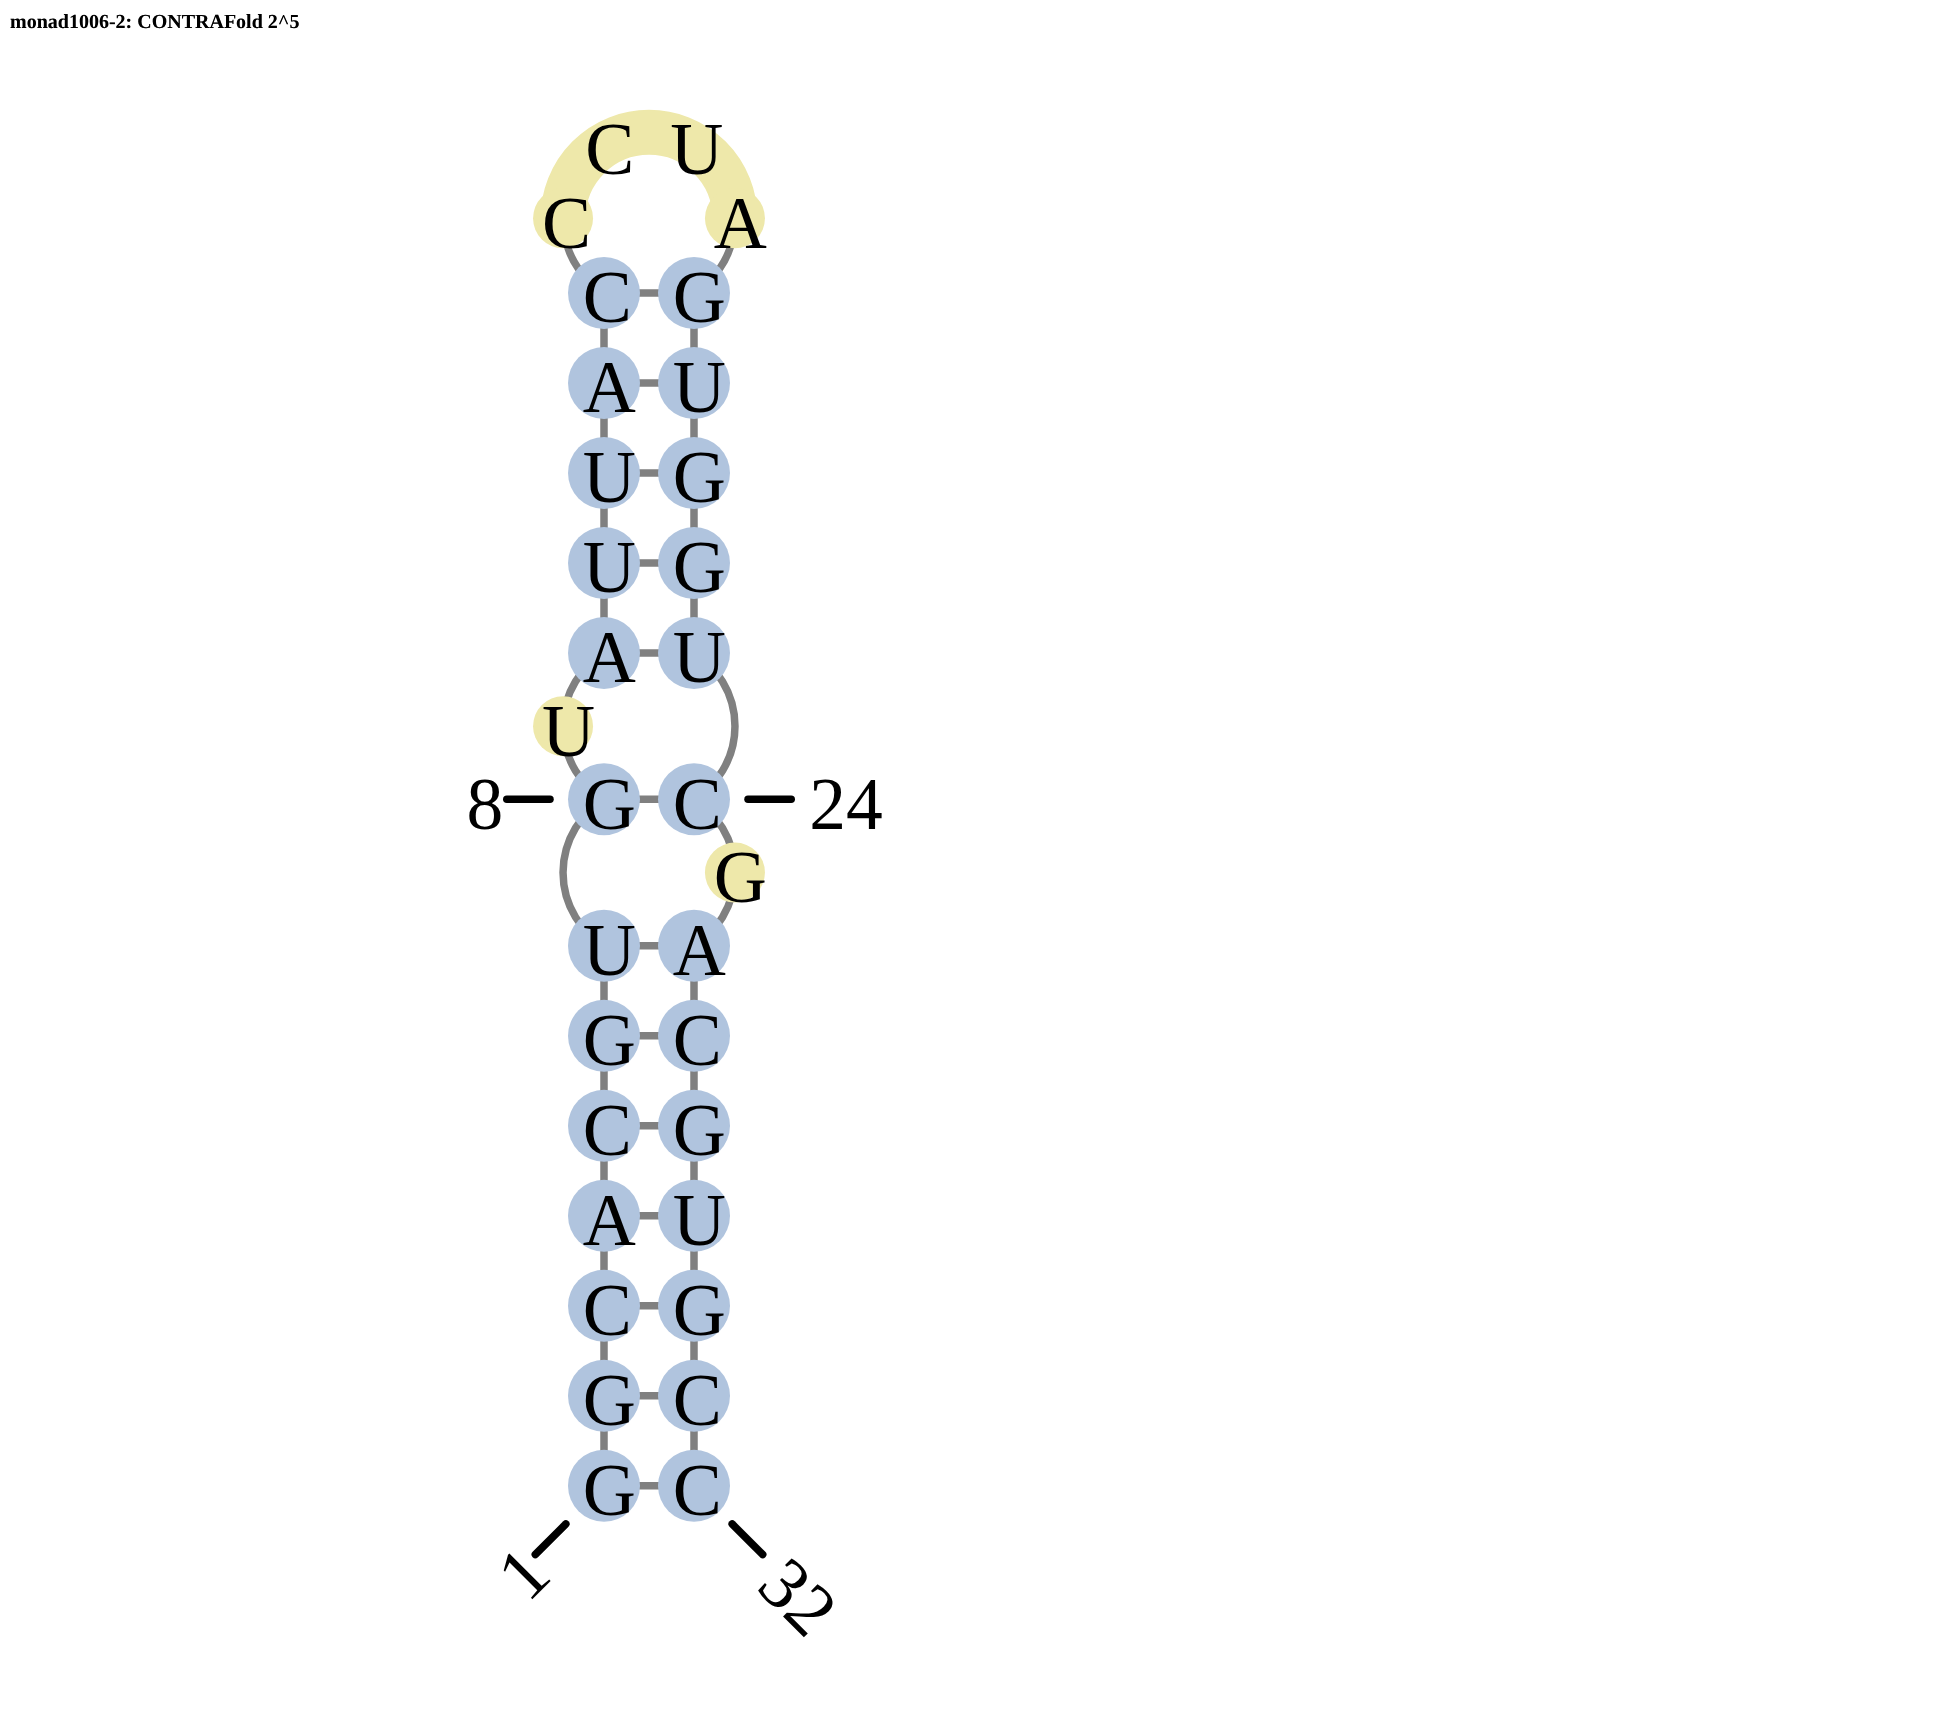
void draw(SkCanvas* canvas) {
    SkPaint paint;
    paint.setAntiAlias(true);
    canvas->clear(0xFFFFFFFF);
    SkFont font1(fontMgr->matchFamilyStyle("Liberation Serif", SkFontStyle::Bold()), 20);
    font1.setSubpixel(true);
    paint.setColor(0xFF000000);
    canvas->drawString("monad1006-2: CONTRAFold 2^5", 10, 28, font1, paint);
    canvas->drawImageRect(SkImages::DeferredFromEncodedData(SkData::MakeFromFileName("img1.png")), SkRect::MakeXYWH(469, 109, 413, 1529), SkSamplingOptions());
}
